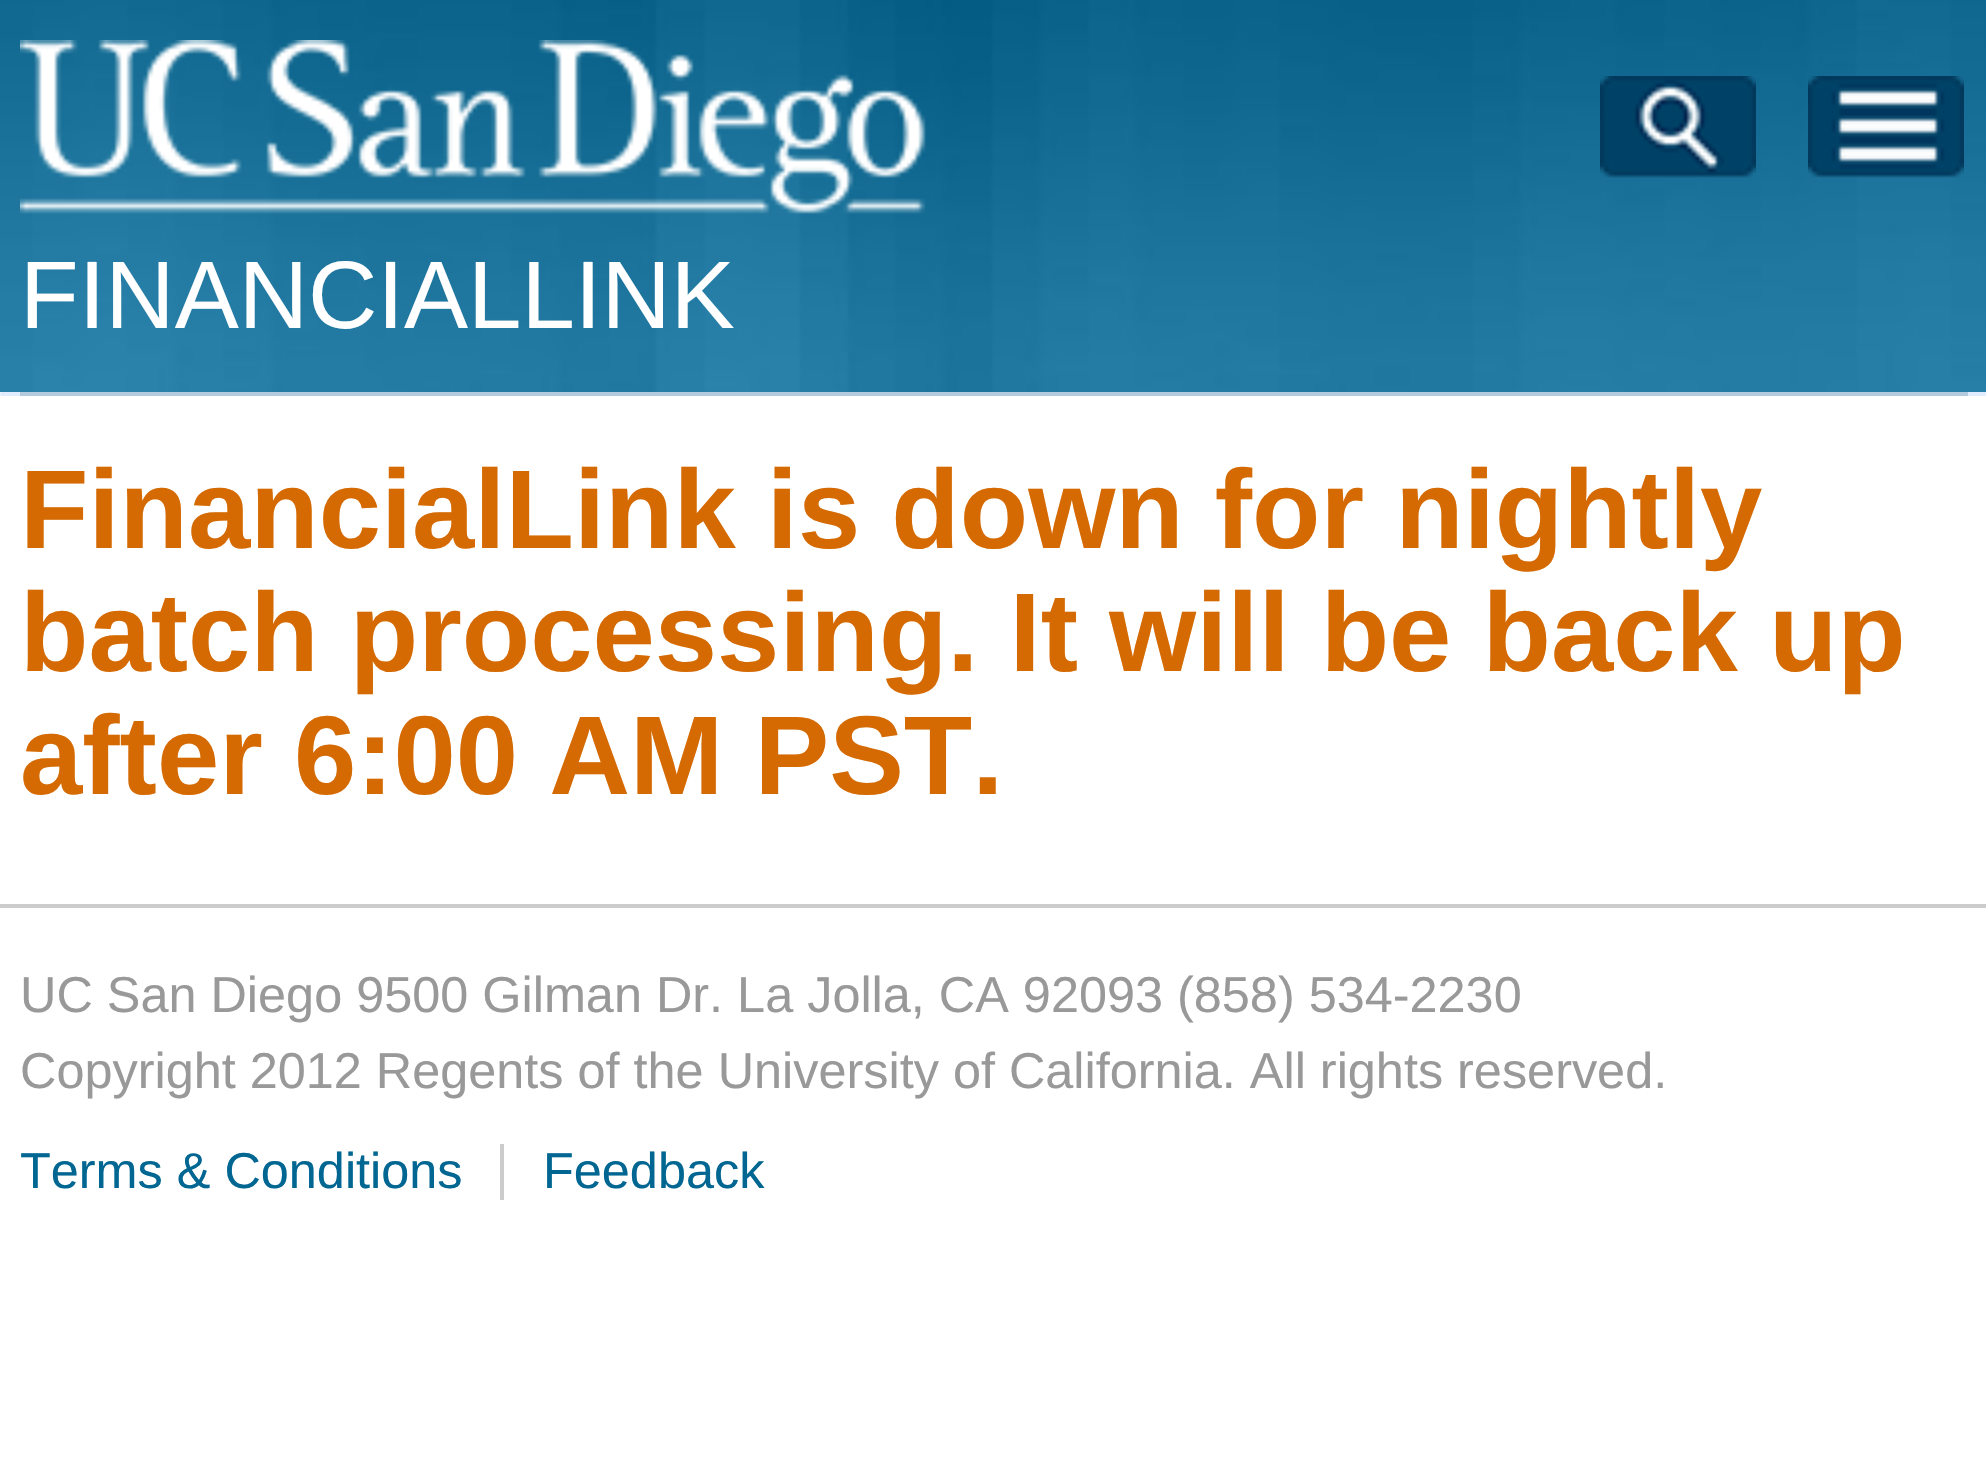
void draw(SkCanvas* canvas) {
    SkPaint paint;
    paint.setAntiAlias(true);
    canvas->clear(0xFFFFFFFF);
    canvas->drawImageRect(SkImages::DeferredFromEncodedData(SkData::MakeFromFileName("img1.png")), SkRect::MakeXYWH(0, 0, 1986, 392), SkSamplingOptions());
    canvas->drawImageRect(SkImages::DeferredFromEncodedData(SkData::MakeFromFileName("img2.png")), SkRect::MakeXYWH(20, 40, 906, 174), SkSamplingOptions());
    canvas->drawImageRect(SkImages::DeferredFromEncodedData(SkData::MakeFromFileName("img3.png")), SkRect::MakeXYWH(1600, 76, 156, 102), SkSamplingOptions());
    canvas->drawImageRect(SkImages::DeferredFromEncodedData(SkData::MakeFromFileName("img4.png")), SkRect::MakeXYWH(1808, 76, 156, 102), SkSamplingOptions());
    SkFont font1(fontMgr->matchFamilyStyle("Liberation Sans", SkFontStyle::Normal()), 96);
    font1.setSubpixel(true);
    paint.setColor(0xFFFFFFFF);
    canvas->drawString("FINANCIALLINK", 20, 328, font1, paint);
    paint.setColor(0xFFE1ECFF);
    canvas->drawRoundRect(SkRect::MakeXYWH(0, 392, 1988, 4), 2, 2, paint);
    paint.setColor(0xFFB3CBDC);
    canvas->drawRect(SkRect::MakeXYWH(20, 392, 1948, 4), paint);
    SkFont font2(fontMgr->matchFamilyStyle("Liberation Sans", SkFontStyle::Bold()), 112);
    font2.setSubpixel(true);
    paint.setColor(0xFFD56A03);
    canvas->drawString("FinancialLink is down for nightly", 20, 548, font2, paint);
    canvas->drawString("batch processing. It will be back up", 20, 671, font2, paint);
    canvas->drawString("after 6:00 AM PST.", 20, 794, font2, paint);
    paint.setColor(0xFFCCCCCC);
    canvas->drawRect(SkRect::MakeXYWH(0, 904, 1986, 4), paint);
    SkFont font3(fontMgr->matchFamilyStyle("Liberation Sans", SkFontStyle::Normal()), 50.4f);
    font3.setSubpixel(true);
    paint.setColor(0xFF999999);
    canvas->drawString("UC San Diego 9500 Gilman Dr. La Jolla, CA 92093 (858) 534-2230", 20, 1012, font3, paint);
    canvas->drawString("Copyright 2012 Regents of the University of California. All rights reserved.", 20, 1088, font3, paint);
    paint.setColor(0xFF016691);
    canvas->drawString("Terms & Conditions", 20, 1188, font3, paint);
    paint.setColor(0xFFCCCCCC);
    canvas->drawRect(SkRect::MakeXYWH(500, 1144, 4, 56), paint);
    paint.setColor(0xFF016691);
    canvas->drawString("Feedback", 543, 1188, font3, paint);
}
